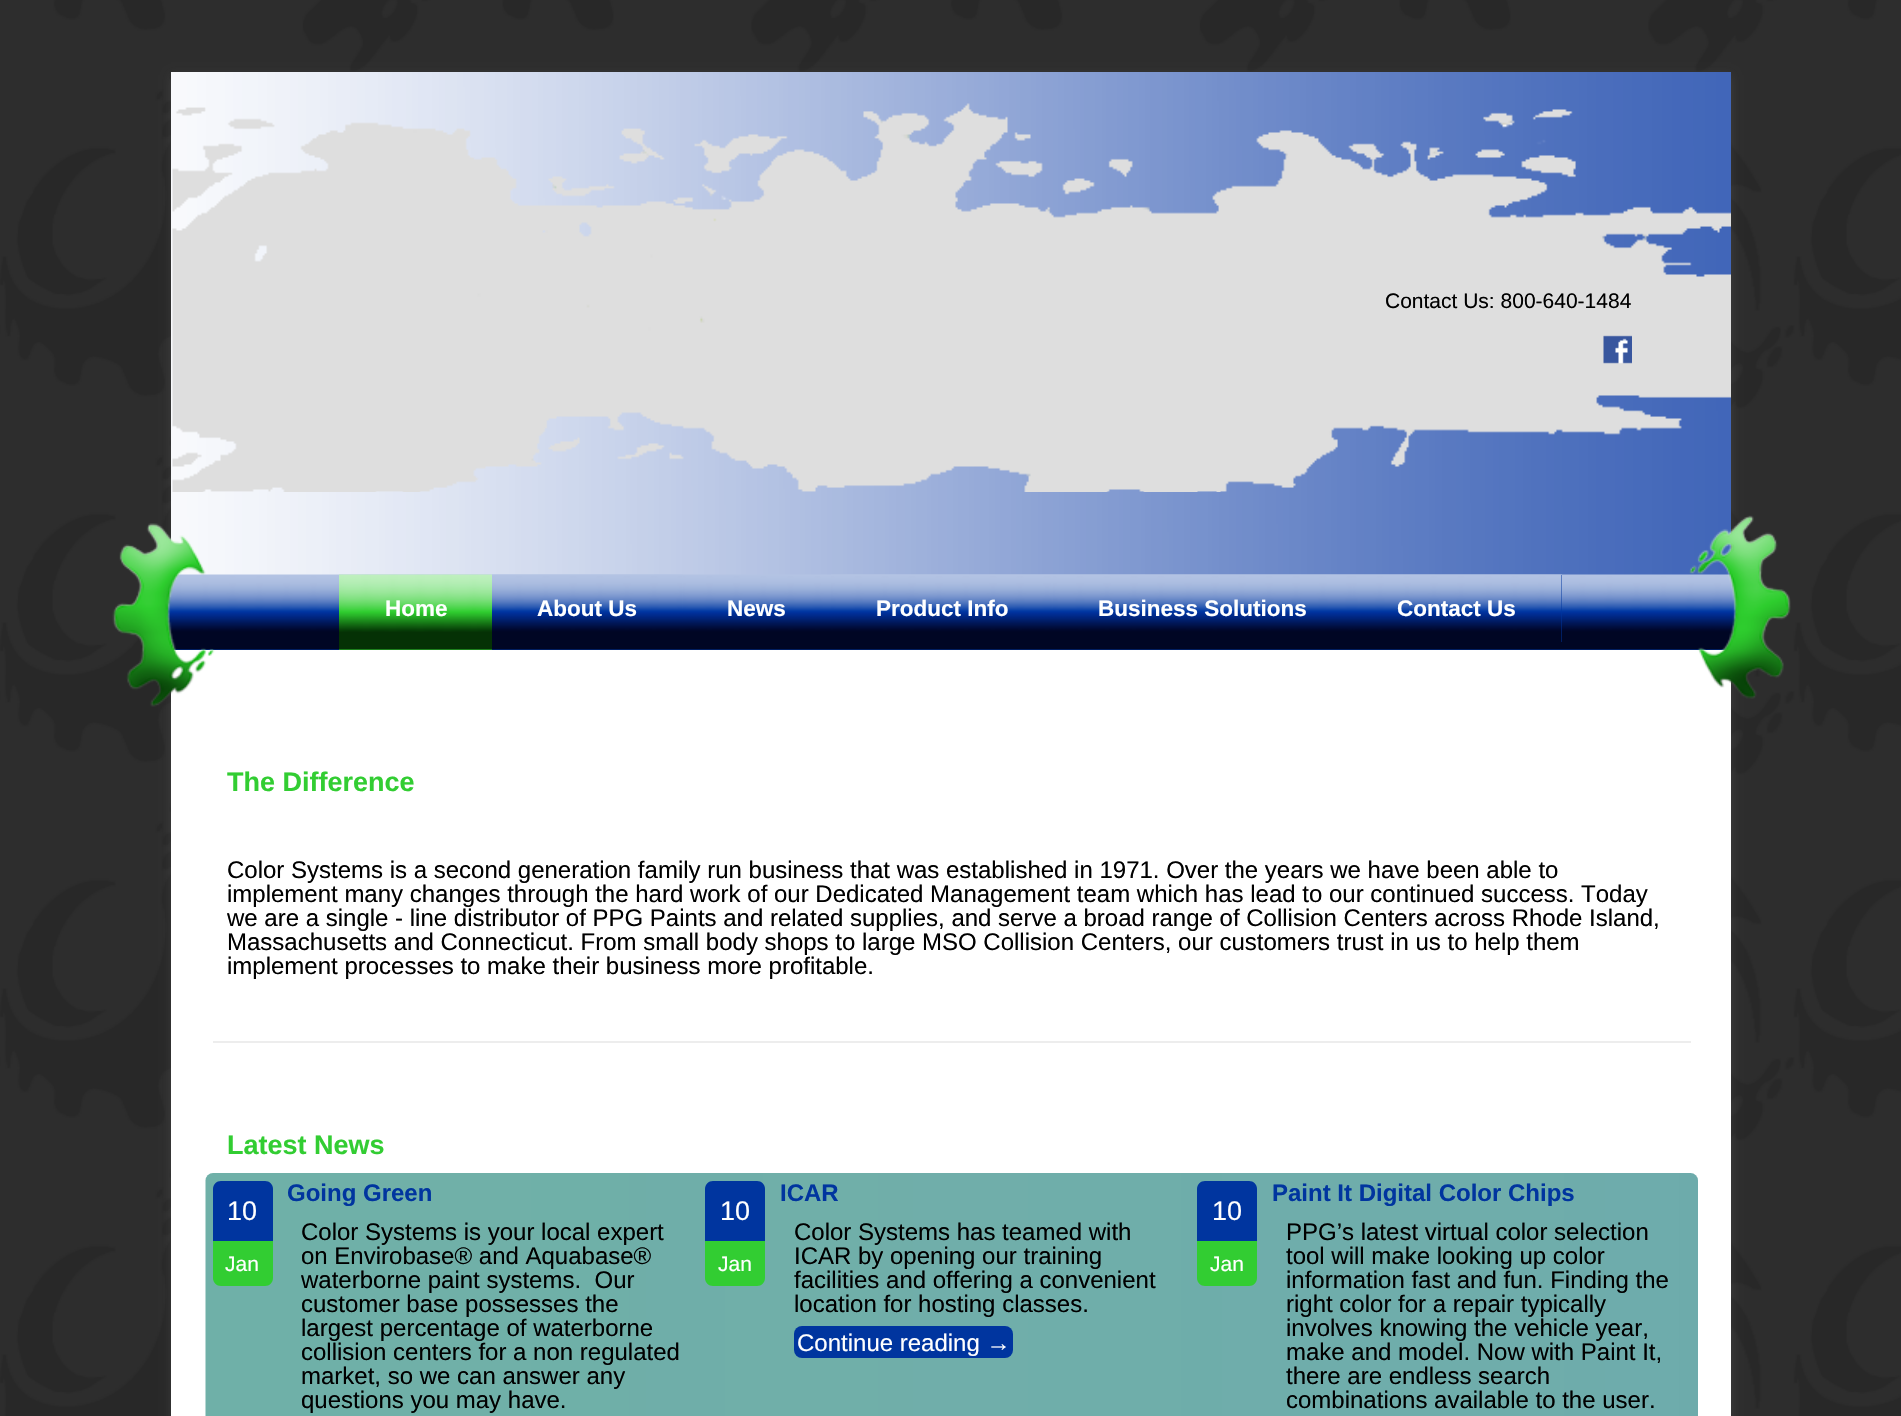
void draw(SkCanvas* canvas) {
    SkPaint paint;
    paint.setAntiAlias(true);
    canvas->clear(0xFFFFFFFF);
    canvas->drawImageRect(SkImages::DeferredFromEncodedData(SkData::MakeFromFileName("img1.png")), SkRect::MakeXYWH(0, 0, 1901, 1416), SkSamplingOptions());
    paint.setColor(0x4D646464);
    paint.setMaskFilter(SkMaskFilter::MakeBlur(kNormal_SkBlurStyle, 4.5f));
    canvas->drawRect(SkRect::MakeXYWH(171, 75, 1560, 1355), paint);
    paint.setMaskFilter(nullptr);
    paint.setColor(0xFFFFFFFF);
    canvas->drawRect(SkRect::MakeXYWH(171, 72, 1560, 1344), paint);
    canvas->drawImageRect(SkImages::DeferredFromEncodedData(SkData::MakeFromFileName("img2.png")), SkRect::MakeXYWH(171, 72, 1560, 503), SkSamplingOptions());
    canvas->drawImageRect(SkImages::DeferredFromEncodedData(SkData::MakeFromFileName("img3.png")), SkRect::MakeXYWH(172, 103, 1559, 389), SkSamplingOptions());
    SkFont font1(fontMgr->matchFamilyStyle("Liberation Sans", SkFontStyle::Normal()), 21);
    font1.setSubpixel(true);
    paint.setColor(0xFF000000);
    canvas->drawString("Contact Us: 800-640-1484", 1385, 308, font1, paint);
    canvas->drawImageRect(SkImages::DeferredFromEncodedData(SkData::MakeFromFileName("img4.png")), SkRect::MakeXYWH(1603, 335, 29, 29), SkSamplingOptions());
    paint.setColor(0xFF00359F);
    canvas->drawRect(SkRect::MakeXYWH(173, 649, 1554, 1), paint);
    canvas->drawImageRect(SkImages::DeferredFromEncodedData(SkData::MakeFromFileName("img6.png")), SkRect::MakeXYWH(166, 574, 1572, 76), SkSamplingOptions());
    canvas->drawImageRect(SkImages::DeferredFromEncodedData(SkData::MakeFromFileName("img5.png")), SkRect::MakeXYWH(112, 523, 103, 184), SkSamplingOptions());
    paint.setColor(0xFF32CD32);
    canvas->drawRect(SkRect::MakeXYWH(339, 649, 153, 1), paint);
    canvas->drawImageRect(SkImages::DeferredFromEncodedData(SkData::MakeFromFileName("img7.png")), SkRect::MakeXYWH(339, 574, 153, 76), SkSamplingOptions());
    SkFont font2(fontMgr->matchFamilyStyle("Liberation Sans", SkFontStyle::Bold()), 22.5f);
    font2.setSubpixel(true);
    paint.setColor(0xFFFFFFFF);
    canvas->drawString("Home", 385, 616, font2, paint);
    canvas->drawImageRect(SkImages::DeferredFromEncodedData(SkData::MakeFromFileName("img8.png")), SkRect::MakeXYWH(492, 574, 191, 68), SkSamplingOptions());
    canvas->drawString("About Us", 537, 616, font2, paint);
    canvas->drawImageRect(SkImages::DeferredFromEncodedData(SkData::MakeFromFileName("img9.png")), SkRect::MakeXYWH(682, 575, 149, 67), SkSamplingOptions());
    canvas->drawString("News", 727, 616, font2, paint);
    canvas->drawImageRect(SkImages::DeferredFromEncodedData(SkData::MakeFromFileName("img10.png")), SkRect::MakeXYWH(831, 574, 222, 68), SkSamplingOptions());
    canvas->drawString("Product Info", 876, 616, font2, paint);
    canvas->drawImageRect(SkImages::DeferredFromEncodedData(SkData::MakeFromFileName("img11.png")), SkRect::MakeXYWH(1053, 574, 300, 68), SkSamplingOptions());
    canvas->drawString("Business Solutions", 1098, 616, font2, paint);
    paint.setColor(0xFF00359F);
    canvas->drawRect(SkRect::MakeXYWH(1561, 575, 1, 67), paint);
    canvas->drawImageRect(SkImages::DeferredFromEncodedData(SkData::MakeFromFileName("img12.png")), SkRect::MakeXYWH(1353, 574, 209, 68), SkSamplingOptions());
    paint.setColor(0xFFFFFFFF);
    canvas->drawString("Contact Us", 1397, 616, font2, paint);
    canvas->drawImageRect(SkImages::DeferredFromEncodedData(SkData::MakeFromFileName("img13.png")), SkRect::MakeXYWH(1689, 515, 102, 184), SkSamplingOptions());
    SkFont font3(fontMgr->matchFamilyStyle("Liberation Sans", SkFontStyle::Bold()), 27);
    font3.setSubpixel(true);
    paint.setColor(0xFF32CD32);
    canvas->drawString("The Difference", 227, 791, font3, paint);
    SkFont font4(fontMgr->matchFamilyStyle("Liberation Sans", SkFontStyle::Normal()), 24);
    font4.setSubpixel(true);
    paint.setColor(0xFF000000);
    canvas->drawString("Color Systems is a second generation family run business that was established in 1971. Over the years we have been able to", 227, 878, font4, paint);
    canvas->drawString("implement many changes through the hard work of our Dedicated Management team which has lead to our continued success. Today", 227, 902, font4, paint);
    canvas->drawString("we are a single - line distributor of PPG Paints and related supplies, and serve a broad range of Collision Centers across Rhode Island,", 227, 926, font4, paint);
    canvas->drawString("Massachusetts and Connecticut. From small body shops to large MSO Collision Centers, our customers trust in us to help them", 227, 950, font4, paint);
    canvas->drawString("implement processes to make their business more profitable.", 227, 974, font4, paint);
    paint.setColor(0xFFEDEDED);
    canvas->drawRect(SkRect::MakeXYWH(213, 1041, 1478, 2), paint);
    paint.setColor(0xFF32CD32);
    canvas->drawString("Latest News", 227, 1154, font3, paint);
    canvas->drawImageRect(SkImages::DeferredFromEncodedData(SkData::MakeFromFileName("img14.png")), SkRect::MakeXYWH(205, 1173, 1493, 243), SkSamplingOptions());
    SkFont font5(fontMgr->matchFamilyStyle("Liberation Sans", SkFontStyle::Bold()), 24);
    font5.setSubpixel(true);
    paint.setColor(0xFF00359F);
    canvas->drawString("Going Green", 287, 1201, font5, paint);
    canvas->drawPath(SkPathBuilder().moveTo(221, 1181).lineTo(265, 1181).cubicTo(269.5f, 1181, 273, 1184.5f, 273, 1189).lineTo(273, 1241).lineTo(213, 1241).lineTo(213, 1189).cubicTo(213, 1184.5f, 216.5f, 1181, 221, 1181).close().detach(), paint);
    SkFont font6(fontMgr->matchFamilyStyle("Liberation Sans", SkFontStyle::Normal()), 27);
    font6.setSubpixel(true);
    paint.setColor(0xFFFFFFFF);
    canvas->drawString("10", 227, 1220, font6, paint);
    paint.setColor(0xFF32CD32);
    canvas->drawPath(SkPathBuilder().moveTo(213, 1241).lineTo(273, 1241).lineTo(273, 1278).cubicTo(273, 1282.5f, 269.5f, 1286, 265, 1286).lineTo(221, 1286).cubicTo(216.5f, 1286, 213, 1282.5f, 213, 1278).close().detach(), paint);
    paint.setColor(0xFFFFFFFF);
    canvas->drawString("Jan", 225, 1271, font1, paint);
    paint.setColor(0xFF000000);
    canvas->drawString("Color Systems is your local expert", 301, 1240, font4, paint);
    canvas->drawString("on Envirobase® and Aquabase®", 301, 1264, font4, paint);
    canvas->drawString("waterborne paint systems.  Our", 301, 1288, font4, paint);
    canvas->drawString("customer base possesses the", 301, 1312, font4, paint);
    canvas->drawString("largest percentage of waterborne", 301, 1336, font4, paint);
    canvas->drawString("collision centers for a non regulated", 301, 1360, font4, paint);
    canvas->drawString("market, so we can answer any", 301, 1384, font4, paint);
    canvas->drawString("questions you may have.", 301, 1408, font4, paint);
    paint.setColor(0xFF00359F);
    canvas->drawString("ICAR", 780, 1201, font5, paint);
    canvas->drawPath(SkPathBuilder().moveTo(713, 1181).lineTo(757, 1181).cubicTo(761.5f, 1181, 765, 1184.5f, 765, 1189).lineTo(765, 1241).lineTo(705, 1241).lineTo(705, 1189).cubicTo(705, 1184.5f, 708.5f, 1181, 713, 1181).close().detach(), paint);
    paint.setColor(0xFFFFFFFF);
    canvas->drawString("10", 720, 1220, font6, paint);
    paint.setColor(0xFF32CD32);
    canvas->drawPath(SkPathBuilder().moveTo(705, 1241).lineTo(765, 1241).lineTo(765, 1278).cubicTo(765, 1282.5f, 761.5f, 1286, 757, 1286).lineTo(713, 1286).cubicTo(708.5f, 1286, 705, 1282.5f, 705, 1278).close().detach(), paint);
    paint.setColor(0xFFFFFFFF);
    canvas->drawString("Jan", 718, 1271, font1, paint);
    paint.setColor(0xFF000000);
    canvas->drawString("Color Systems has teamed with", 794, 1240, font4, paint);
    canvas->drawString("ICAR by opening our training", 794, 1264, font4, paint);
    canvas->drawString("facilities and offering a convenient", 794, 1288, font4, paint);
    canvas->drawString("location for hosting classes.", 794, 1312, font4, paint);
    paint.setColor(0xFF00359F);
    canvas->drawRoundRect(SkRect::MakeXYWH(794, 1326, 219, 32), 8, 8, paint);
    paint.setColor(0xFFFFFFFF);
    canvas->drawString("Continue reading →", 797, 1351, font4, paint);
    paint.setColor(0xFF00359F);
    canvas->drawString("Paint It Digital Color Chips", 1272, 1201, font5, paint);
    canvas->drawPath(SkPathBuilder().moveTo(1205, 1181).lineTo(1249, 1181).cubicTo(1253.5f, 1181, 1257, 1184.5f, 1257, 1189).lineTo(1257, 1241).lineTo(1197, 1241).lineTo(1197, 1189).cubicTo(1197, 1184.5f, 1200.5f, 1181, 1205, 1181).close().detach(), paint);
    paint.setColor(0xFFFFFFFF);
    canvas->drawString("10", 1212, 1220, font6, paint);
    paint.setColor(0xFF32CD32);
    canvas->drawPath(SkPathBuilder().moveTo(1197, 1241).lineTo(1257, 1241).lineTo(1257, 1278).cubicTo(1257, 1282.5f, 1253.5f, 1286, 1249, 1286).lineTo(1205, 1286).cubicTo(1200.5f, 1286, 1197, 1282.5f, 1197, 1278).close().detach(), paint);
    paint.setColor(0xFFFFFFFF);
    canvas->drawString("Jan", 1210, 1271, font1, paint);
    paint.setColor(0xFF000000);
    canvas->drawString("PPG’s latest virtual color selection", 1286, 1240, font4, paint);
    canvas->drawString("tool will make looking up color", 1286, 1264, font4, paint);
    canvas->drawString("information fast and fun. Finding the", 1286, 1288, font4, paint);
    canvas->drawString("right color for a repair typically", 1286, 1312, font4, paint);
    canvas->drawString("involves knowing the vehicle year,", 1286, 1336, font4, paint);
    canvas->drawString("make and model. Now with Paint It,", 1286, 1360, font4, paint);
    canvas->drawString("there are endless search", 1286, 1384, font4, paint);
    canvas->drawString("combinations available to the user.", 1286, 1408, font4, paint);
}
